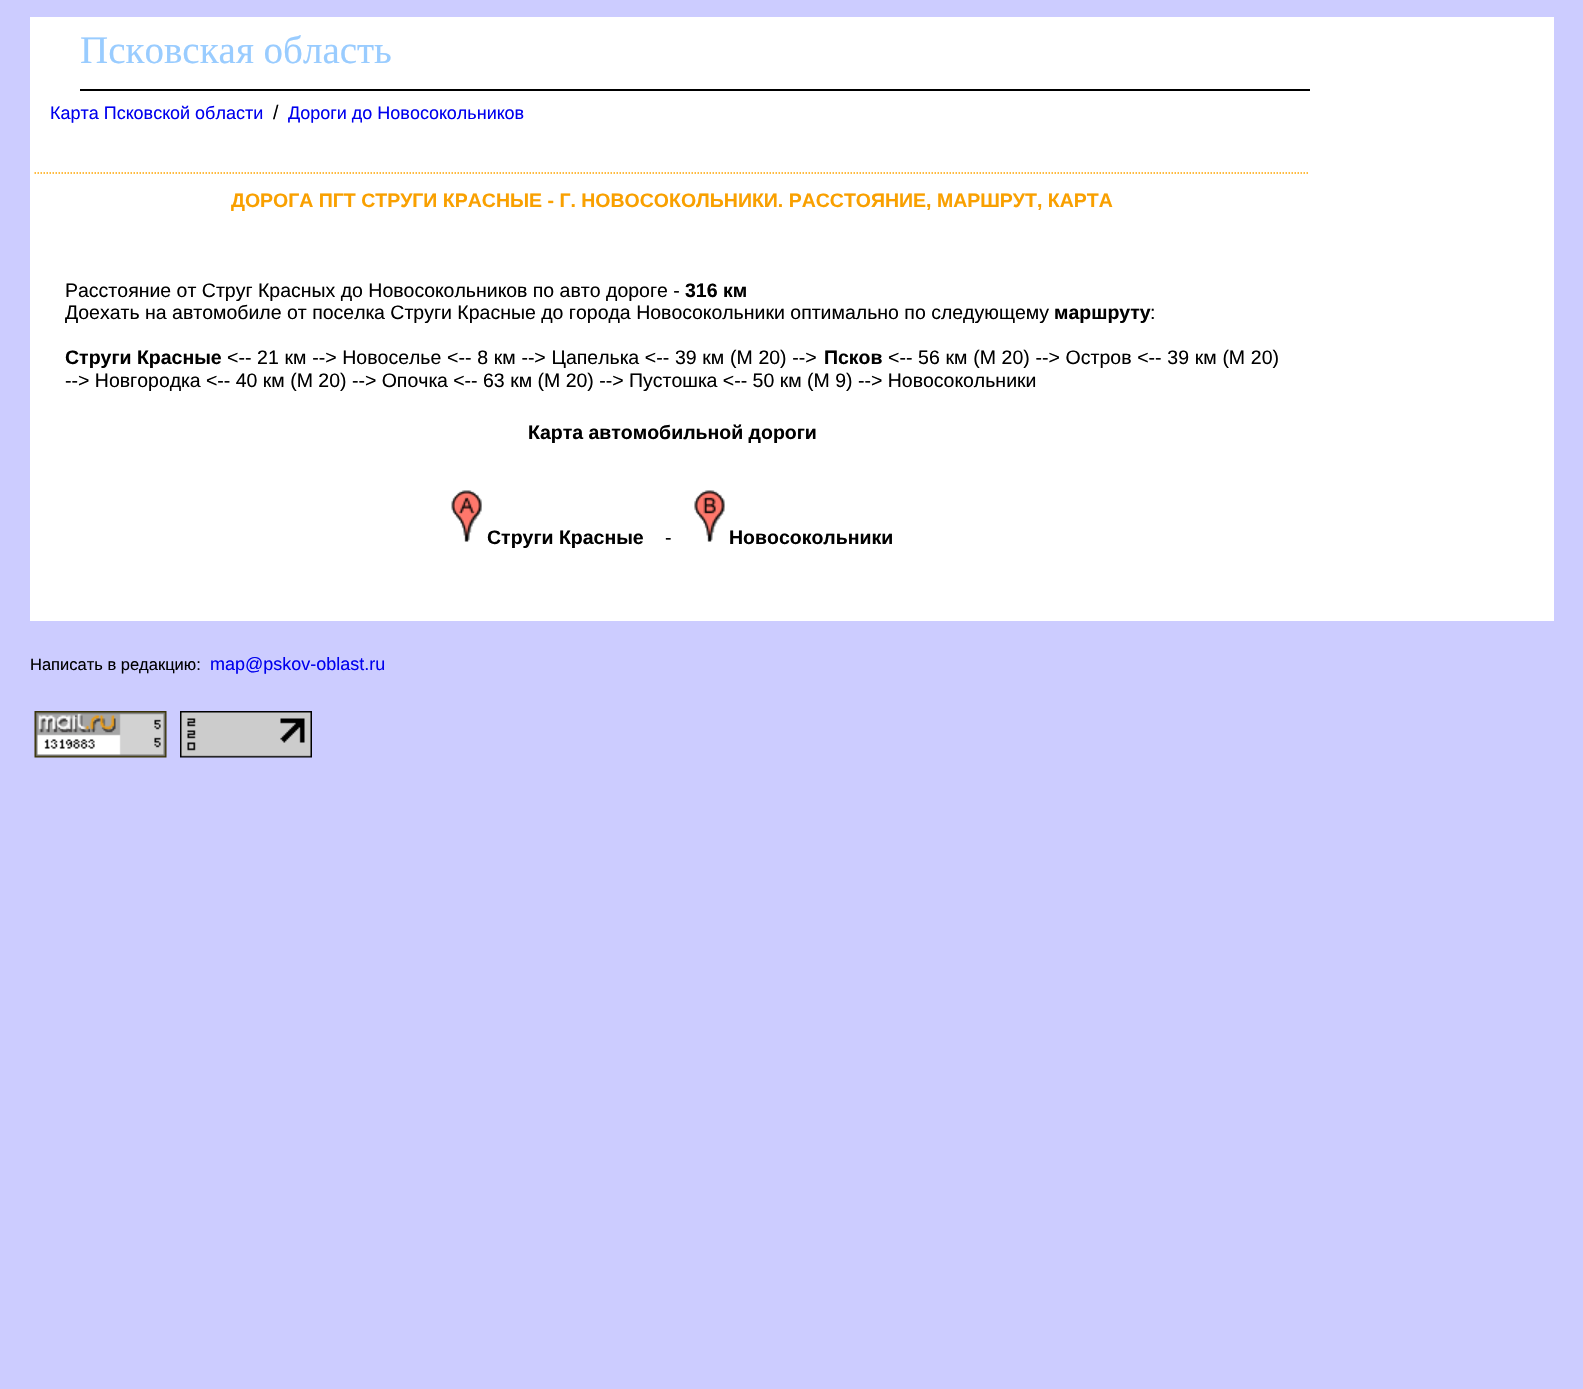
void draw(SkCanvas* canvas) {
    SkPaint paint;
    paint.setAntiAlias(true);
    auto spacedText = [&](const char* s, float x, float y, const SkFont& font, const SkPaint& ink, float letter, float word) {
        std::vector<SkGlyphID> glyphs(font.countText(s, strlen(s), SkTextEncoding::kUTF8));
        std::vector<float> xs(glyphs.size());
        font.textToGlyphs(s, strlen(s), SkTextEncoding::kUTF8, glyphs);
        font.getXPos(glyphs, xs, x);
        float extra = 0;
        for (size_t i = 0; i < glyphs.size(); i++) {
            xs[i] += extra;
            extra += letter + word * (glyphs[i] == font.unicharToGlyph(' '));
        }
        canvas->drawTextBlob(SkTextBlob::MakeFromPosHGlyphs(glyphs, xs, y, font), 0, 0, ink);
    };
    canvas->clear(0xFFCCCCFF);
    paint.setColor(0xFFFFFFFF);
    canvas->drawRect(SkRect::MakeXYWH(30, 17, 1524, 604), paint);
    paint.setColor(0xFF000000);
    canvas->drawRect(SkRect::MakeXYWH(80, 89, 1230, 2), paint);
    SkFont font1(fontMgr->matchFamilyStyle("Liberation Serif", SkFontStyle::Normal()), 39);
    font1.setSubpixel(true);
    paint.setColor(0xFF99CCFF);
    canvas->drawString("Псковская область", 80, 63, font1, paint);
    SkFont font2(fontMgr->matchFamilyStyle("Liberation Sans", SkFontStyle::Normal()), 18);
    font2.setSubpixel(true);
    paint.setColor(0xFF0000EE);
    canvas->drawString("Карта Псковской области", 50, 119, font2, paint);
    SkFont font3(fontMgr->matchFamilyStyle("Liberation Sans", SkFontStyle::Normal()), 19.5f);
    font3.setSubpixel(true);
    paint.setColor(0xFF000000);
    canvas->drawString("/", 273, 119, font3, paint);
    paint.setColor(0xFF0000EE);
    canvas->drawString("Дороги до Новосокольников", 288, 119, font2, paint);
    paint.setStyle(SkPaint::kStroke_Style);
    paint.setStrokeWidth(1.5f);
    paint.setColor(0xFFFFA500);
    paint.setPathEffect(SkDashPathEffect::Make({{1.5f, 1.5f}}, 0));
    canvas->drawPath(SkPathBuilder().moveTo(34.5f, 173).lineTo(1309.5f, 173).detach(), paint);
    paint.setPathEffect(nullptr);
    SkFont font4(fontMgr->matchFamilyStyle("Liberation Sans", SkFontStyle::Bold()), 19.5f);
    font4.setSubpixel(true);
    paint.setStyle(SkPaint::kFill_Style);
    paint.setColor(0xFFF9A000);
    canvas->drawString("ДОРОГА ПГТ СТРУГИ КРАСНЫЕ - Г. НОВОСОКОЛЬНИКИ. РАССТОЯНИЕ, МАРШРУТ, КАРТА", 231, 207, font4, paint);
    paint.setColor(0xFF000000);
    canvas->drawString("Расстояние от Струг Красных до Новосокольников по авто дороге -", 65, 297, font3, paint);
    canvas->drawString("316 км", 685, 297, font4, paint);
    canvas->drawString("Доехать на автомобиле от поселка Струги Красные до города Новосокольники оптимально по следующему", 65, 319, font3, paint);
    canvas->drawString("маршруту", 1054, 319, font4, paint);
    canvas->drawString(":", 1150, 319, font3, paint);
    canvas->drawString("Струги Красные", 65, 364, font4, paint);
    spacedText("<-- 21 км --> Новоселье <-- 8 км --> Цапелька <-- 39 км (М 20) -->", 227, 364, font3, paint, 0, 0.3f);
    canvas->drawString("Псков", 824, 364, font4, paint);
    spacedText("<-- 56 км (М 20) --> Остров <-- 39 км (М 20)", 888, 364, font3, paint, 0, 0.3f);
    canvas->drawString("--> Новгородка <-- 40 км (М 20) --> Опочка <-- 63 км (М 20) --> Пустошка <-- 50 км (М 9) --> Новосокольники", 65, 387, font3, paint);
    canvas->drawString("Карта автомобильной дороги", 528, 439, font4, paint);
    canvas->drawImageRect(SkImages::DeferredFromEncodedData(SkData::MakeFromFileName("img1.png")), SkRect::MakeXYWH(451, 490, 31, 52), SkSamplingOptions());
    canvas->drawString("Струги Красные", 487, 544, font4, paint);
    canvas->drawString("-", 665, 544, font3, paint);
    canvas->drawImageRect(SkImages::DeferredFromEncodedData(SkData::MakeFromFileName("img2.png")), SkRect::MakeXYWH(694, 490, 31, 52), SkSamplingOptions());
    canvas->drawString("Новосокольники", 729, 544, font4, paint);
    SkFont font5(fontMgr->matchFamilyStyle("Liberation Sans", SkFontStyle::Normal()), 16.5f);
    font5.setSubpixel(true);
    canvas->drawString("Написать в редакцию:", 30, 670, font5, paint);
    paint.setColor(0xFF0000EE);
    canvas->drawString("map@pskov-oblast.ru", 210, 670, font2, paint);
    canvas->drawImageRect(SkImages::DeferredFromEncodedData(SkData::MakeFromFileName("img3.png")), SkRect::MakeXYWH(34, 711, 133, 47), SkSamplingOptions());
    canvas->drawImageRect(SkImages::DeferredFromEncodedData(SkData::MakeFromFileName("img4.png")), SkRect::MakeXYWH(180, 711, 132, 47), SkSamplingOptions());
}
